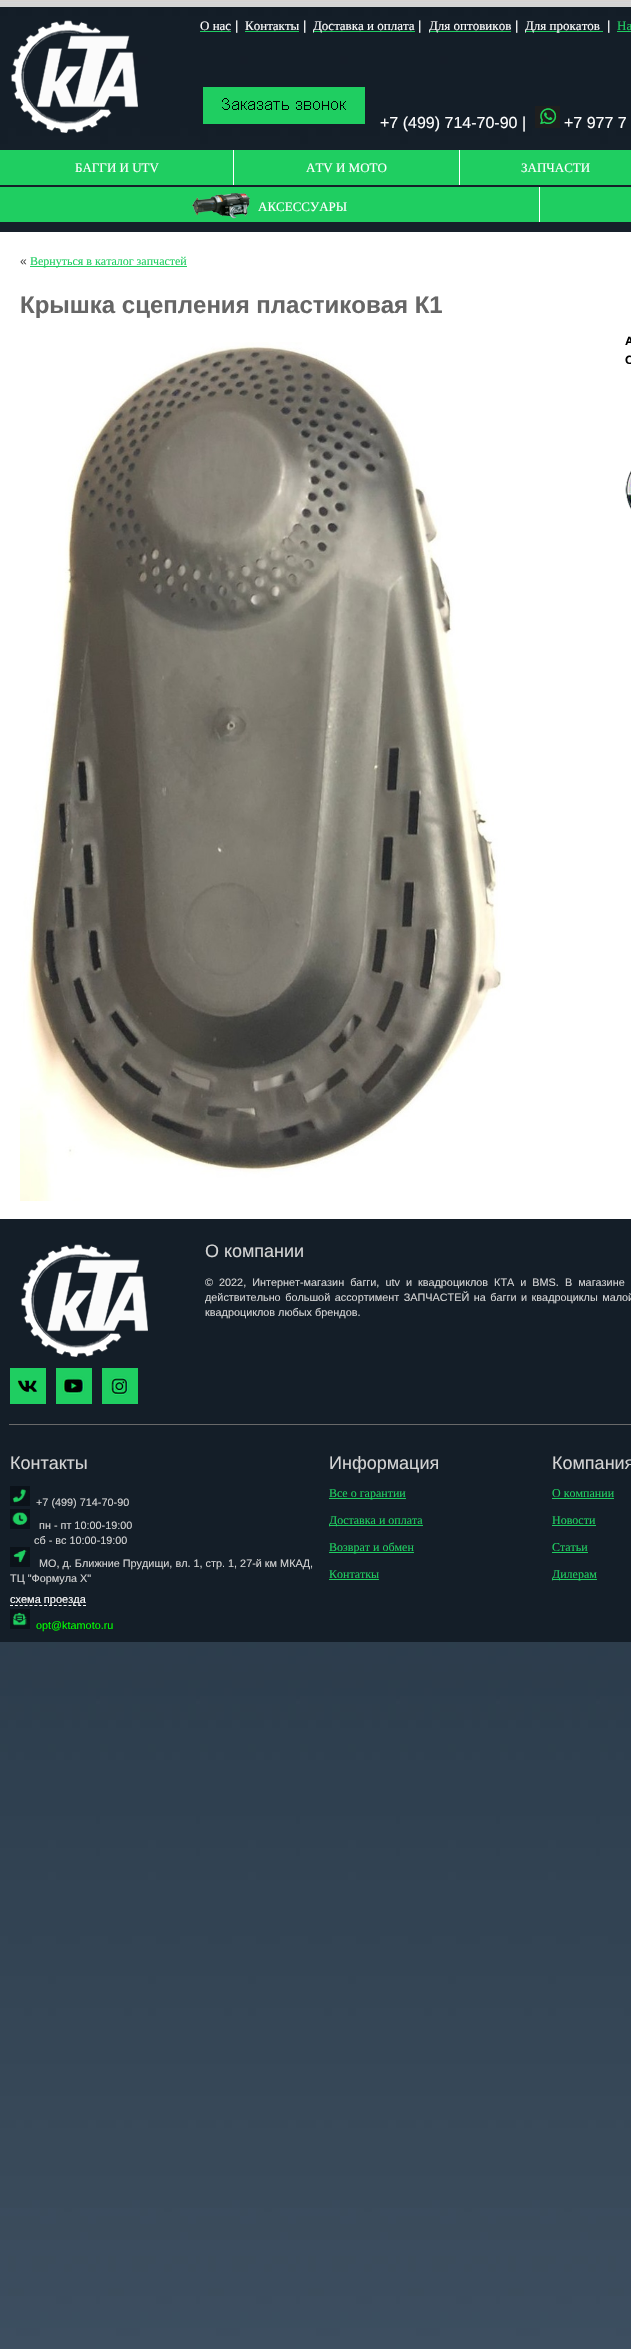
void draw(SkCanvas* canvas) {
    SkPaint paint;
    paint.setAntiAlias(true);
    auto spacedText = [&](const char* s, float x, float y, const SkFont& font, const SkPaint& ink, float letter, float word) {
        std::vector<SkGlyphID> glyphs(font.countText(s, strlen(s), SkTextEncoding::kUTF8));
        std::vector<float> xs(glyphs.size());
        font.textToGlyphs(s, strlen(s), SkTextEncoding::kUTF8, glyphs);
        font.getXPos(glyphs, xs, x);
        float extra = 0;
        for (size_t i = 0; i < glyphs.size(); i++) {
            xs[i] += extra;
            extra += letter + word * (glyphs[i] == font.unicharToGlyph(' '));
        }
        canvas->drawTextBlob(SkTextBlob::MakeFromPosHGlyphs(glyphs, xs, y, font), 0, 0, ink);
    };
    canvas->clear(0xFFFFFFFF);
    canvas->drawImageRect(SkImages::DeferredFromEncodedData(SkData::MakeFromFileName("img1.png")), SkRect::MakeXYWH(0, 0, 631, 2349), SkSamplingOptions());
    canvas->drawImageRect(SkImages::DeferredFromEncodedData(SkData::MakeFromFileName("img2.png")), SkRect::MakeXYWH(11, 20, 127, 113), SkSamplingOptions());
    SkFont font1(fontMgr->matchFamilyStyle("Liberation Serif", SkFontStyle::Normal()), 13);
    font1.setSubpixel(true);
    paint.setColor(0xFFFFFFFF);
    canvas->drawString("О нас", 200, 30, font1, paint);
    paint.setColor(0xFF1FCE61);
    canvas->drawRect(SkRect::MakeXYWH(200, 31, 31, 1), paint);
    SkFont font2(fontMgr->matchFamilyStyle("Liberation Sans", SkFontStyle::Normal()), 13);
    font2.setSubpixel(true);
    paint.setColor(0xFFFFFFFF);
    canvas->drawString("|", 235, 30, font2, paint);
    canvas->drawString("Контакты", 245, 30, font1, paint);
    paint.setColor(0xFF1FCE61);
    canvas->drawRect(SkRect::MakeXYWH(245, 31, 54, 1), paint);
    paint.setColor(0xFFFFFFFF);
    canvas->drawString("|", 303, 30, font2, paint);
    paint.setColor(0xFF1FCE61);
    canvas->drawRect(SkRect::MakeXYWH(313, 31, 102, 1), paint);
    paint.setColor(0xFFFFFFFF);
    canvas->drawString("Доставка и оплата", 313, 30, font1, paint);
    canvas->drawString("|", 418, 30, font2, paint);
    paint.setColor(0xFF1FCE61);
    canvas->drawRect(SkRect::MakeXYWH(429, 31, 82, 1), paint);
    paint.setColor(0xFFFFFFFF);
    canvas->drawString("Для оптовиков", 429, 30, font1, paint);
    canvas->drawString("|", 515, 30, font2, paint);
    paint.setColor(0xFF1FCE61);
    canvas->drawRect(SkRect::MakeXYWH(525, 31, 78, 1), paint);
    paint.setColor(0xFFFFFFFF);
    canvas->drawString("Для прокатов", 525, 30, font1, paint);
    canvas->drawString("|", 607, 30, font2, paint);
    paint.setColor(0xFF1FCE61);
    canvas->drawString("На", 617, 30, font1, paint);
    canvas->drawRect(SkRect::MakeXYWH(617, 31, 14, 1), paint);
    canvas->drawImageRect(SkImages::DeferredFromEncodedData(SkData::MakeFromFileName("img3.png")), SkRect::MakeXYWH(203, 87, 162, 37), SkSamplingOptions());
    SkFont font3(fontMgr->matchFamilyStyle("Liberation Sans", SkFontStyle::Normal()), 16);
    font3.setSubpixel(true);
    paint.setColor(0xFFFFFFFF);
    canvas->drawString("+7 (499) 714-70-90 |", 380, 128, font3, paint);
    canvas->drawImageRect(SkImages::DeferredFromEncodedData(SkData::MakeFromFileName("img4.png")), SkRect::MakeXYWH(535, 106, 25, 22), SkSamplingOptions());
    canvas->drawString("+7 977 7", 564, 128, font3, paint);
    paint.setColor(0xFF1FCE61);
    canvas->drawRect(SkRect::MakeXYWH(0, 150, 233, 35), paint);
    paint.setColor(0xFFFFFFFF);
    canvas->drawRect(SkRect::MakeXYWH(233, 150, 1, 35), paint);
    canvas->drawString("БАГГИ И UTV", 75, 172, font1, paint);
    paint.setColor(0xFF1FCE61);
    canvas->drawRect(SkRect::MakeXYWH(234, 150, 225, 35), paint);
    paint.setColor(0xFFFFFFFF);
    canvas->drawRect(SkRect::MakeXYWH(459, 150, 1, 35), paint);
    canvas->drawString("ATV И MOTO", 306, 172, font1, paint);
    paint.setColor(0xFF1FCE61);
    canvas->drawRect(SkRect::MakeXYWH(460, 150, 171, 35), paint);
    paint.setColor(0xFFFFFFFF);
    canvas->drawString("ЗАПЧАСТИ", 521, 172, font1, paint);
    paint.setColor(0xFF1FCE61);
    canvas->drawRect(SkRect::MakeXYWH(0, 187, 539, 35), paint);
    paint.setColor(0xFFFFFFFF);
    canvas->drawRect(SkRect::MakeXYWH(539, 187, 1, 35), paint);
    canvas->drawImageRect(SkImages::DeferredFromEncodedData(SkData::MakeFromFileName("img5.png")), SkRect::MakeXYWH(192, 193, 58, 26), SkSamplingOptions());
    canvas->drawString("АКСЕССУАРЫ", 258, 211, font1, paint);
    paint.setColor(0xFF1FCE61);
    canvas->drawRect(SkRect::MakeXYWH(540, 187, 91, 35), paint);
    paint.setColor(0xFFFFFFFF);
    canvas->drawRect(SkRect::MakeXYWH(0, 232, 631, 987), paint);
    SkFont font4(fontMgr->matchFamilyStyle("Liberation Sans", SkFontStyle::Normal()), 12);
    font4.setSubpixel(true);
    paint.setColor(0xFF494949);
    canvas->drawString("«", 20, 265, font4, paint);
    paint.setColor(0xFF1FCE61);
    canvas->drawRect(SkRect::MakeXYWH(30, 266, 157, 1), paint);
    SkFont font5(fontMgr->matchFamilyStyle("Liberation Serif", SkFontStyle::Normal()), 12);
    font5.setSubpixel(true);
    canvas->drawString("Вернуться в каталог запчастей", 30, 265, font5, paint);
    SkFont font6(fontMgr->matchFamilyStyle("Liberation Sans", SkFontStyle::Bold()), 24);
    font6.setSubpixel(true);
    paint.setColor(0xFF666666);
    canvas->drawString("Крышка сцепления пластиковая К1", 20, 313, font6, paint);
    canvas->drawImageRect(SkImages::DeferredFromEncodedData(SkData::MakeFromFileName("img6.png")), SkRect::MakeXYWH(20, 342, 485, 859), SkSamplingOptions());
    SkFont font7(fontMgr->matchFamilyStyle("Liberation Sans", SkFontStyle::Bold()), 12);
    font7.setSubpixel(true);
    paint.setColor(0xFF000000);
    canvas->drawString("А", 625, 345, font7, paint);
    canvas->drawString("С", 625, 364, font7, paint);
    canvas->drawImageRect(SkImages::DeferredFromEncodedData(SkData::MakeFromFileName("img7.png")), SkRect::MakeXYWH(625, 470, 6, 40), SkSamplingOptions());
    paint.setColor(0xFF141E28);
    canvas->drawRect(SkRect::MakeXYWH(0, 1219, 631, 423), paint);
    canvas->drawImageRect(SkImages::DeferredFromEncodedData(SkData::MakeFromFileName("img8.png")), SkRect::MakeXYWH(21, 1244, 127, 113), SkSamplingOptions());
    canvas->drawImageRect(SkImages::DeferredFromEncodedData(SkData::MakeFromFileName("img9.png")), SkRect::MakeXYWH(10, 1368, 36, 36), SkSamplingOptions());
    canvas->drawImageRect(SkImages::DeferredFromEncodedData(SkData::MakeFromFileName("img10.png")), SkRect::MakeXYWH(56, 1368, 36, 36), SkSamplingOptions());
    canvas->drawImageRect(SkImages::DeferredFromEncodedData(SkData::MakeFromFileName("img11.png")), SkRect::MakeXYWH(102, 1368, 36, 36), SkSamplingOptions());
    SkFont font8(fontMgr->matchFamilyStyle("Liberation Sans", SkFontStyle::Normal()), 18);
    font8.setSubpixel(true);
    paint.setColor(0xFFD3D3D3);
    canvas->drawString("О компании", 205, 1257, font8, paint);
    SkFont font9(fontMgr->matchFamilyStyle("Liberation Sans", SkFontStyle::Normal()), 10.85f);
    font9.setSubpixel(true);
    spacedText("© 2022, Интернет-магазин багги, utv и квадроциклов КТА и BMS. В магазине", 205, 1286, font9, paint, 0, 3);
    spacedText("действительно большой ассортимент ЗАПЧАСТЕЙ на багги и квадроциклы малой", 205, 1301, font9, paint, 0, 1.5f);
    canvas->drawString("квадроциклов любых брендов.", 205, 1316, font9, paint);
    paint.setColor(0xFF696969);
    canvas->drawRect(SkRect::MakeXYWH(9, 1424, 622, 1), paint);
    paint.setColor(0xFFD3D3D3);
    canvas->drawString("Контакты", 10, 1469, font8, paint);
    canvas->drawImageRect(SkImages::DeferredFromEncodedData(SkData::MakeFromFileName("img12.png")), SkRect::MakeXYWH(10, 1486, 20, 20), SkSamplingOptions());
    canvas->drawString("+7 (499) 714-70-90", 36, 1506, font9, paint);
    canvas->drawImageRect(SkImages::DeferredFromEncodedData(SkData::MakeFromFileName("img13.png")), SkRect::MakeXYWH(10, 1509, 20, 20), SkSamplingOptions());
    canvas->drawString("пн - пт 10:00-19:00", 39, 1529, font9, paint);
    canvas->drawString("cб - вс 10:00-19:00", 34, 1544, font9, paint);
    canvas->drawImageRect(SkImages::DeferredFromEncodedData(SkData::MakeFromFileName("img14.png")), SkRect::MakeXYWH(10, 1547, 20, 20), SkSamplingOptions());
    canvas->drawString("МО, д. Ближние Прудищи, вл. 1, стр. 1, 27-й км МКАД,", 39, 1567, font9, paint);
    canvas->drawString("ТЦ \"Формула Х\"", 10, 1582, font9, paint);
    paint.setStyle(SkPaint::kStroke_Style);
    paint.setStrokeWidth(1);
    paint.setColor(0xFFFDFDFC);
    paint.setPathEffect(SkDashPathEffect::Make({{3, 1.87f}}, 0));
    canvas->drawPath(SkPathBuilder().moveTo(10, 1605.5f).lineTo(86, 1605.5f).detach(), paint);
    paint.setPathEffect(nullptr);
    SkFont font10(fontMgr->matchFamilyStyle("Liberation Sans", SkFontStyle::Normal()), 11);
    font10.setSubpixel(true);
    paint.setStyle(SkPaint::kFill_Style);
    paint.setColor(0xFFFFFFFF);
    canvas->drawString("схема проезда", 10, 1603, font10, paint);
    canvas->drawImageRect(SkImages::DeferredFromEncodedData(SkData::MakeFromFileName("img15.png")), SkRect::MakeXYWH(10, 1609, 20, 20), SkSamplingOptions());
    paint.setColor(0xFF00FF00);
    canvas->drawString("opt@ktamoto.ru", 36, 1629, font9, paint);
    paint.setColor(0xFFD3D3D3);
    canvas->drawString("Информация", 329, 1469, font8, paint);
    paint.setColor(0xFF1FCE61);
    canvas->drawRect(SkRect::MakeXYWH(329, 1498, 77, 1), paint);
    canvas->drawString("Все о гарантии", 329, 1497, font5, paint);
    canvas->drawRect(SkRect::MakeXYWH(329, 1525, 94, 1), paint);
    canvas->drawString("Доставка и оплата", 329, 1524, font5, paint);
    canvas->drawRect(SkRect::MakeXYWH(329, 1552, 85, 1), paint);
    canvas->drawString("Возврат и обмен", 329, 1551, font5, paint);
    canvas->drawString("Контаткы", 329, 1578, font5, paint);
    canvas->drawRect(SkRect::MakeXYWH(329, 1579, 50, 1), paint);
    paint.setColor(0xFFD3D3D3);
    canvas->drawString("Компания", 552, 1469, font8, paint);
    paint.setColor(0xFF1FCE61);
    canvas->drawString("О компании", 552, 1497, font5, paint);
    canvas->drawRect(SkRect::MakeXYWH(552, 1498, 62, 1), paint);
    canvas->drawString("Новости", 552, 1524, font5, paint);
    canvas->drawRect(SkRect::MakeXYWH(552, 1525, 44, 1), paint);
    canvas->drawString("Статьи", 552, 1551, font5, paint);
    canvas->drawRect(SkRect::MakeXYWH(552, 1552, 36, 1), paint);
    canvas->drawRect(SkRect::MakeXYWH(552, 1579, 45, 1), paint);
    canvas->drawString("Дилерам", 552, 1578, font5, paint);
}
